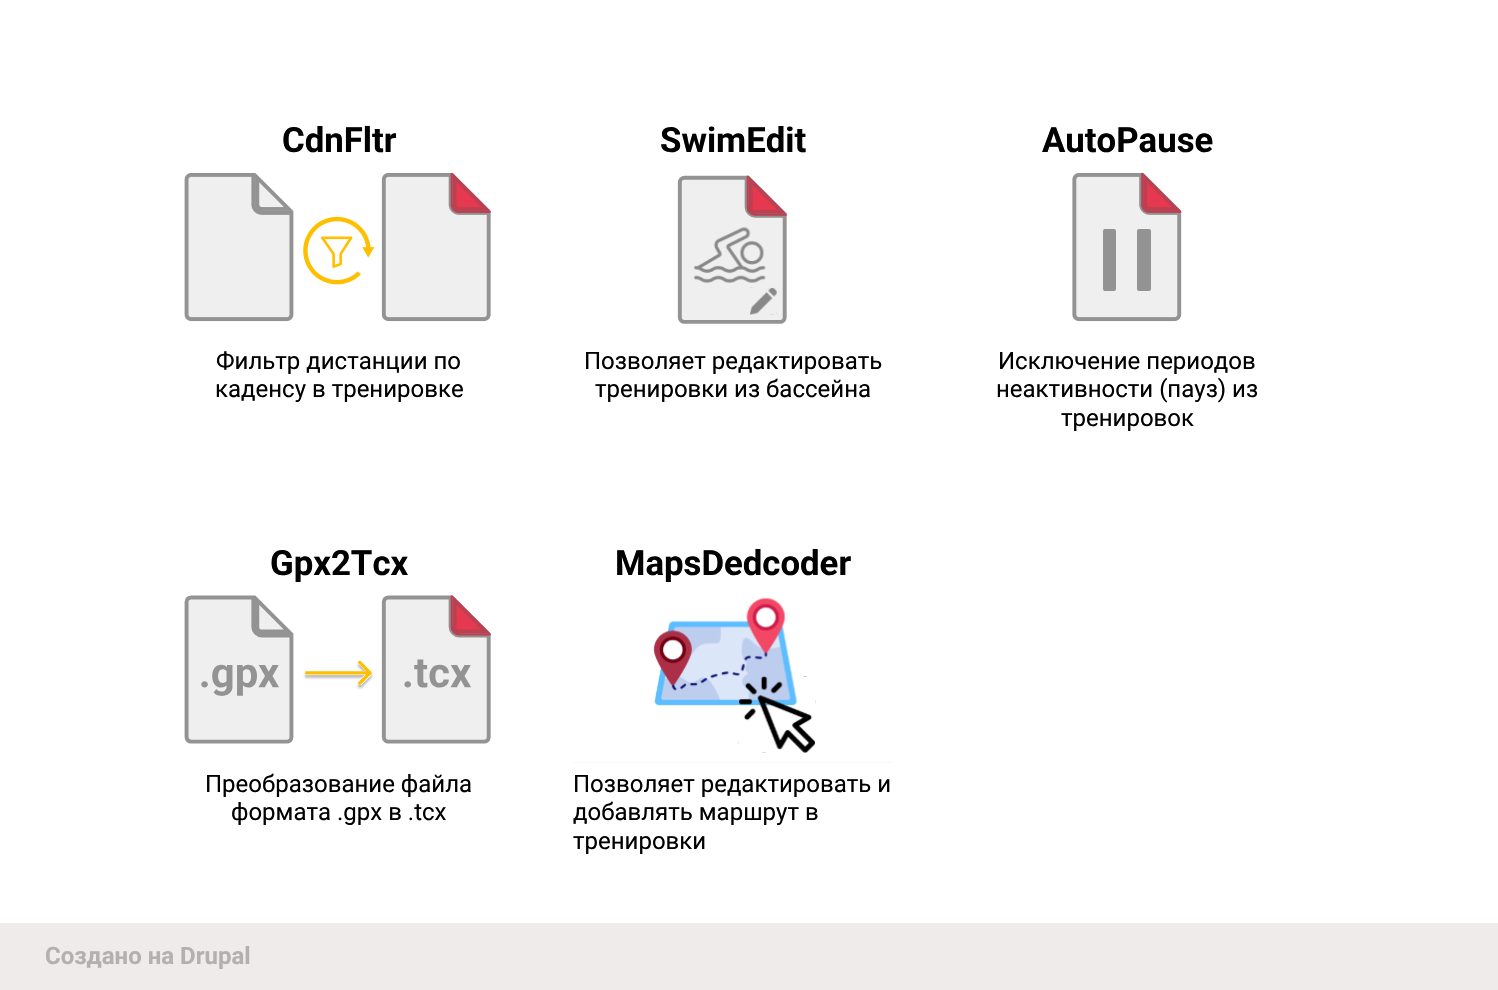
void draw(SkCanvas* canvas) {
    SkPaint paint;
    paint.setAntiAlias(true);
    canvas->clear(0xFFFFFFFF);
    SkFont font1(fontMgr->matchFamilyStyle("Roboto", SkFontStyle::Bold()), 34.75f);
    font1.setSubpixel(true);
    paint.setColor(0xFF000000);
    canvas->drawString("CdnFltr", 282, 152, font1, paint);
    canvas->drawImageRect(SkImages::DeferredFromEncodedData(SkData::MakeFromFileName("img1.png")), SkRect::MakeXYWH(184, 172, 307, 150), SkSamplingOptions());
    SkFont font2(fontMgr->matchFamilyStyle("Roboto", SkFontStyle::Normal()), 24);
    font2.setSubpixel(true);
    canvas->drawString("Фильтр дистанции по", 216, 369, font2, paint);
    canvas->drawString("каденсу в тренировке", 215, 397, font2, paint);
    canvas->drawString("SwimEdit", 660, 152, font1, paint);
    canvas->drawImageRect(SkImages::DeferredFromEncodedData(SkData::MakeFromFileName("img2.png")), SkRect::MakeXYWH(677, 175, 110, 149), SkSamplingOptions());
    canvas->drawString("Позволяет редактировать", 584, 369, font2, paint);
    canvas->drawString("тренировки из бассейна", 595, 397, font2, paint);
    canvas->drawString("AutoPause", 1042, 152, font1, paint);
    canvas->drawImageRect(SkImages::DeferredFromEncodedData(SkData::MakeFromFileName("img3.png")), SkRect::MakeXYWH(1072, 172, 110, 150), SkSamplingOptions());
    canvas->drawString("Исключение периодов", 998, 369, font2, paint);
    canvas->drawString("неактивности (пауз) из", 996, 397, font2, paint);
    canvas->drawString("тренировок", 1061, 426, font2, paint);
    canvas->drawString("Gpx2Tcx", 270, 575, font1, paint);
    canvas->drawImageRect(SkImages::DeferredFromEncodedData(SkData::MakeFromFileName("img4.png")), SkRect::MakeXYWH(184, 595, 307, 149), SkSamplingOptions());
    canvas->drawString("Преобразование файла", 205, 792, font2, paint);
    canvas->drawString("формата .gpx в .tcx", 231, 820, font2, paint);
    canvas->drawString("MapsDedcoder", 615, 575, font1, paint);
    canvas->drawImageRect(SkImages::DeferredFromEncodedData(SkData::MakeFromFileName("img5.png")), SkRect::MakeXYWH(573, 597, 319, 166), SkSamplingOptions());
    canvas->drawString("Позволяет редактировать и", 573, 792, font2, paint);
    canvas->drawString("добавлять маршрут в", 573, 820, font2, paint);
    canvas->drawString("тренировки", 573, 849, font2, paint);
    paint.setColor(0xFFEFEBEB);
    canvas->drawRect(SkRect::MakeXYWH(0, 923, 1498, 67), paint);
    SkFont font3(fontMgr->matchFamilyStyle("Roboto", SkFontStyle::Bold()), 24);
    font3.setSubpixel(true);
    paint.setColor(0xFFB3B0B0);
    canvas->drawString("Создано на Drupal", 45, 964, font3, paint);
}
